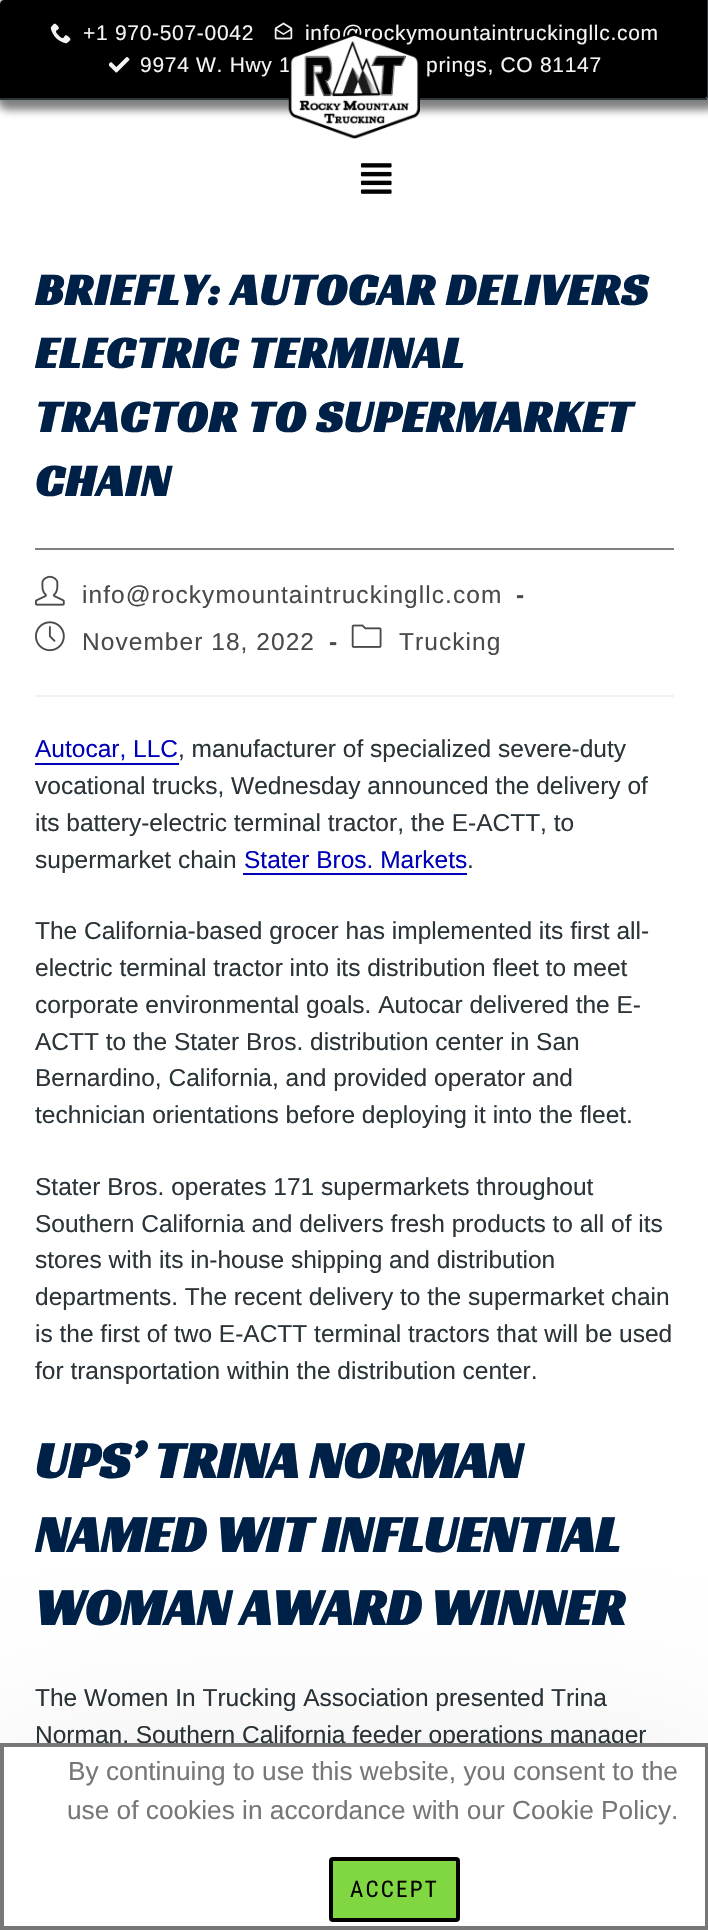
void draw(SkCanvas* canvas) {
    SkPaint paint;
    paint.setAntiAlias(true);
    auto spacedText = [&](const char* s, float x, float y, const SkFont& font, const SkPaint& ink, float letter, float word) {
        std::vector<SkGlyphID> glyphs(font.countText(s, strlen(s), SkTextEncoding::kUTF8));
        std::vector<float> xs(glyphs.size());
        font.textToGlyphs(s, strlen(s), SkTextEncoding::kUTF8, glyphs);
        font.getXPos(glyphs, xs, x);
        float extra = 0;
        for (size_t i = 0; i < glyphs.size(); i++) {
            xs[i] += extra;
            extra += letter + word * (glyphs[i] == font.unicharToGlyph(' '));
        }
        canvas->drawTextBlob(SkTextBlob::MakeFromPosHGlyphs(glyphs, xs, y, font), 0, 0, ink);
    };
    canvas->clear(0xFFFFFFFF);
    paint.setColor(0x80000000);
    paint.setMaskFilter(SkMaskFilter::MakeBlur(kNormal_SkBlurStyle, 4.5f));
    canvas->drawRoundRect(SkRect::MakeXYWH(-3, -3, 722, 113), 11, 11, paint);
    paint.setMaskFilter(nullptr);
    paint.setColor(0xFF000000);
    canvas->drawPath(SkPathBuilder().moveTo(4, 0).lineTo(707, 0).lineTo(707, 96).cubicTo(707, 97, 706, 98, 705, 98).lineTo(0, 98).lineTo(0, 4).cubicTo(0, 2, 2, 0, 4, 0).close().detach(), paint);
    paint.setColor(0xFF2A3439);
    canvas->drawRect(SkRect::MakeXYWH(707, 0, 1, 98), paint);
    canvas->drawRect(SkRect::MakeXYWH(0, 98, 707, 2), paint);
    canvas->drawImageRect(SkImages::DeferredFromEncodedData(SkData::MakeFromFileName("img1.png")), SkRect::MakeXYWH(50, 23, 21, 21), SkSamplingOptions());
    SkFont font1(fontMgr->matchFamilyStyle("Liberation Sans", SkFontStyle::Normal()), 21);
    font1.setSubpixel(true);
    paint.setColor(0xFFF5F5F5);
    spacedText("+1 970-507-0042", 83, 40, font1, paint, 0.7f, 0);
    canvas->drawImageRect(SkImages::DeferredFromEncodedData(SkData::MakeFromFileName("img2.png")), SkRect::MakeXYWH(274, 22, 19, 18), SkSamplingOptions());
    spacedText("info@rockymountaintruckingllc.com", 305, 40, font1, paint, 0.7f, 0);
    canvas->drawImageRect(SkImages::DeferredFromEncodedData(SkData::MakeFromFileName("img3.png")), SkRect::MakeXYWH(109, 57, 21, 16), SkSamplingOptions());
    spacedText("9974 W. Hwy 1", 140, 72, font1, paint, 0.7f, 0);
    spacedText("prings, CO 81147", 426, 72, font1, paint, 0.7f, 0);
    canvas->drawImageRect(SkImages::DeferredFromEncodedData(SkData::MakeFromFileName("img4.png")), SkRect::MakeXYWH(288, 33, 132, 106), SkSamplingOptions());
    canvas->drawImageRect(SkImages::DeferredFromEncodedData(SkData::MakeFromFileName("img5.png")), SkRect::MakeXYWH(360, 163, 32, 31), SkSamplingOptions());
    paint.setColor(0xFF808080);
    canvas->drawRect(SkRect::MakeXYWH(35, 548, 639, 2), paint);
    SkFont font2(fontMgr->matchFamilyStyle("Racing Sans One", SkFontStyle::Bold()), 45.5f);
    font2.setSubpixel(true);
    paint.setColor(0xFF002147);
    spacedText("BRIEFLY: AUTOCAR DELIVERS", 35, 305, font2, paint, 1.05f, 0);
    spacedText("ELECTRIC TERMINAL", 35, 368, font2, paint, 1.05f, 0);
    spacedText("TRACTOR TO SUPERMARKET", 35, 432, font2, paint, 1.05f, 0);
    spacedText("CHAIN", 35, 496, font2, paint, 1.05f, 0);
    paint.setColor(0xFFF1F1F1);
    canvas->drawRect(SkRect::MakeXYWH(35, 695, 639, 2), paint);
    canvas->drawImageRect(SkImages::DeferredFromEncodedData(SkData::MakeFromFileName("img6.png")), SkRect::MakeXYWH(35, 575, 30, 31), SkSamplingOptions());
    SkFont font3(fontMgr->matchFamilyStyle("Liberation Sans", SkFontStyle::Normal()), 24.5f);
    font3.setSubpixel(true);
    paint.setColor(0xFF4A4A4A);
    spacedText("info@rockymountaintruckingllc.com", 82, 603, font3, paint, 1.05f, 0);
    SkFont font4(fontMgr->matchFamilyStyle("Liberation Sans", SkFontStyle::Bold()), 24.5f);
    font4.setSubpixel(true);
    spacedText("-", 516, 603, font4, paint, 1.05f, 0);
    canvas->drawImageRect(SkImages::DeferredFromEncodedData(SkData::MakeFromFileName("img7.png")), SkRect::MakeXYWH(35, 621, 30, 31), SkSamplingOptions());
    spacedText("November 18, 2022", 82, 650, font3, paint, 1.05f, 0);
    spacedText("-", 329, 650, font4, paint, 1.05f, 0);
    canvas->drawImageRect(SkImages::DeferredFromEncodedData(SkData::MakeFromFileName("img8.png")), SkRect::MakeXYWH(351, 624, 31, 24), SkSamplingOptions());
    spacedText("Trucking", 399, 650, font3, paint, 1.05f, 0);
    paint.setColor(0xFF0000B8);
    canvas->drawString("Autocar, LLC", 35, 757, font3, paint);
    canvas->drawRect(SkRect::MakeXYWH(35, 763, 144, 2), paint);
    paint.setColor(0xFF2A3439);
    canvas->drawString(", manufacturer of specialized severe-duty", 178, 757, font3, paint);
    canvas->drawString("vocational trucks, Wednesday announced the delivery of", 35, 794, font3, paint);
    canvas->drawString("its battery-electric terminal tractor, the E-ACTT, to", 35, 831, font3, paint);
    canvas->drawString("supermarket chain", 35, 868, font3, paint);
    paint.setColor(0xFF0000B8);
    canvas->drawString("Stater Bros. Markets", 244, 868, font3, paint);
    canvas->drawRect(SkRect::MakeXYWH(243, 873, 224, 2), paint);
    paint.setColor(0xFF2A3439);
    canvas->drawString(".", 467, 868, font3, paint);
    canvas->drawString("The California-based grocer has implemented its first all-", 35, 939, font3, paint);
    canvas->drawString("electric terminal tractor into its distribution fleet to meet", 35, 976, font3, paint);
    canvas->drawString("corporate environmental goals. Autocar delivered the E-", 35, 1013, font3, paint);
    canvas->drawString("ACTT to the Stater Bros. distribution center in San", 35, 1050, font3, paint);
    canvas->drawString("Bernardino, California, and provided operator and", 35, 1086, font3, paint);
    canvas->drawString("technician orientations before deploying it into the fleet.", 35, 1123, font3, paint);
    canvas->drawString("Stater Bros. operates 171 supermarkets throughout", 35, 1195, font3, paint);
    canvas->drawString("Southern California and delivers fresh products to all of its", 35, 1232, font3, paint);
    canvas->drawString("stores with its in-house shipping and distribution", 35, 1268, font3, paint);
    canvas->drawString("departments. The recent delivery to the supermarket chain", 35, 1305, font3, paint);
    canvas->drawString("is the first of two E-ACTT terminal tractors that will be used", 35, 1342, font3, paint);
    canvas->drawString("for transportation within the distribution center.", 35, 1379, font3, paint);
    SkFont font5(fontMgr->matchFamilyStyle("Racing Sans One", SkFontStyle::Bold()), 52.5f);
    font5.setSubpixel(true);
    paint.setColor(0xFF002147);
    canvas->drawString("UPS’ TRINA NORMAN", 35, 1478, font5, paint);
    canvas->drawString("NAMED WIT INFLUENTIAL", 35, 1552, font5, paint);
    canvas->drawString("WOMAN AWARD WINNER", 35, 1625, font5, paint);
    paint.setColor(0xFF2A3439);
    canvas->drawString("The Women In Trucking Association presented Trina", 35, 1706, font3, paint);
    canvas->drawString("Norman, Southern California feeder operations manager", 35, 1743, font3, paint);
    paint.setColor(0x1A000000);
    paint.setMaskFilter(SkMaskFilter::MakeBlur(kNormal_SkBlurStyle, 87.5f));
    canvas->drawRect(SkRect::MakeXYWH(0, 1778, 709, 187), paint);
    paint.setMaskFilter(nullptr);
    paint.setColor(0xFFFFFFFF);
    canvas->drawRect(SkRect::MakeXYWH(2, 1745, 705, 183), paint);
    paint.setStyle(SkPaint::kStroke_Style);
    paint.setStrokeWidth(4);
    paint.setColor(0xFF777777);
    canvas->drawRect(SkRect::MakeXYWH(2, 1745, 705, 183), paint);
    SkFont font6(fontMgr->matchFamilyStyle("Liberation Sans", SkFontStyle::Normal()), 26.25f);
    font6.setSubpixel(true);
    paint.setStyle(SkPaint::kFill_Style);
    canvas->drawString("By continuing to use this website, you consent to the", 68, 1780, font6, paint);
    canvas->drawString("use of cookies in accordance with our Cookie Policy.", 67, 1819, font6, paint);
    paint.setColor(0xFF81D742);
    canvas->drawRoundRect(SkRect::MakeXYWH(331, 1859, 127, 61), 2, 2, paint);
    paint.setStyle(SkPaint::kStroke_Style);
    paint.setColor(0xFF000000);
    canvas->drawRoundRect(SkRect::MakeXYWH(331, 1859, 127, 61), 2, 2, paint);
    SkFont font7(fontMgr->matchFamilyStyle("Roboto Condensed", SkFontStyle::Normal()), 23);
    font7.setSubpixel(true);
    paint.setStyle(SkPaint::kFill_Style);
    spacedText("ACCEPT", 350, 1897, font7, paint, 2.25f, 0);
}
